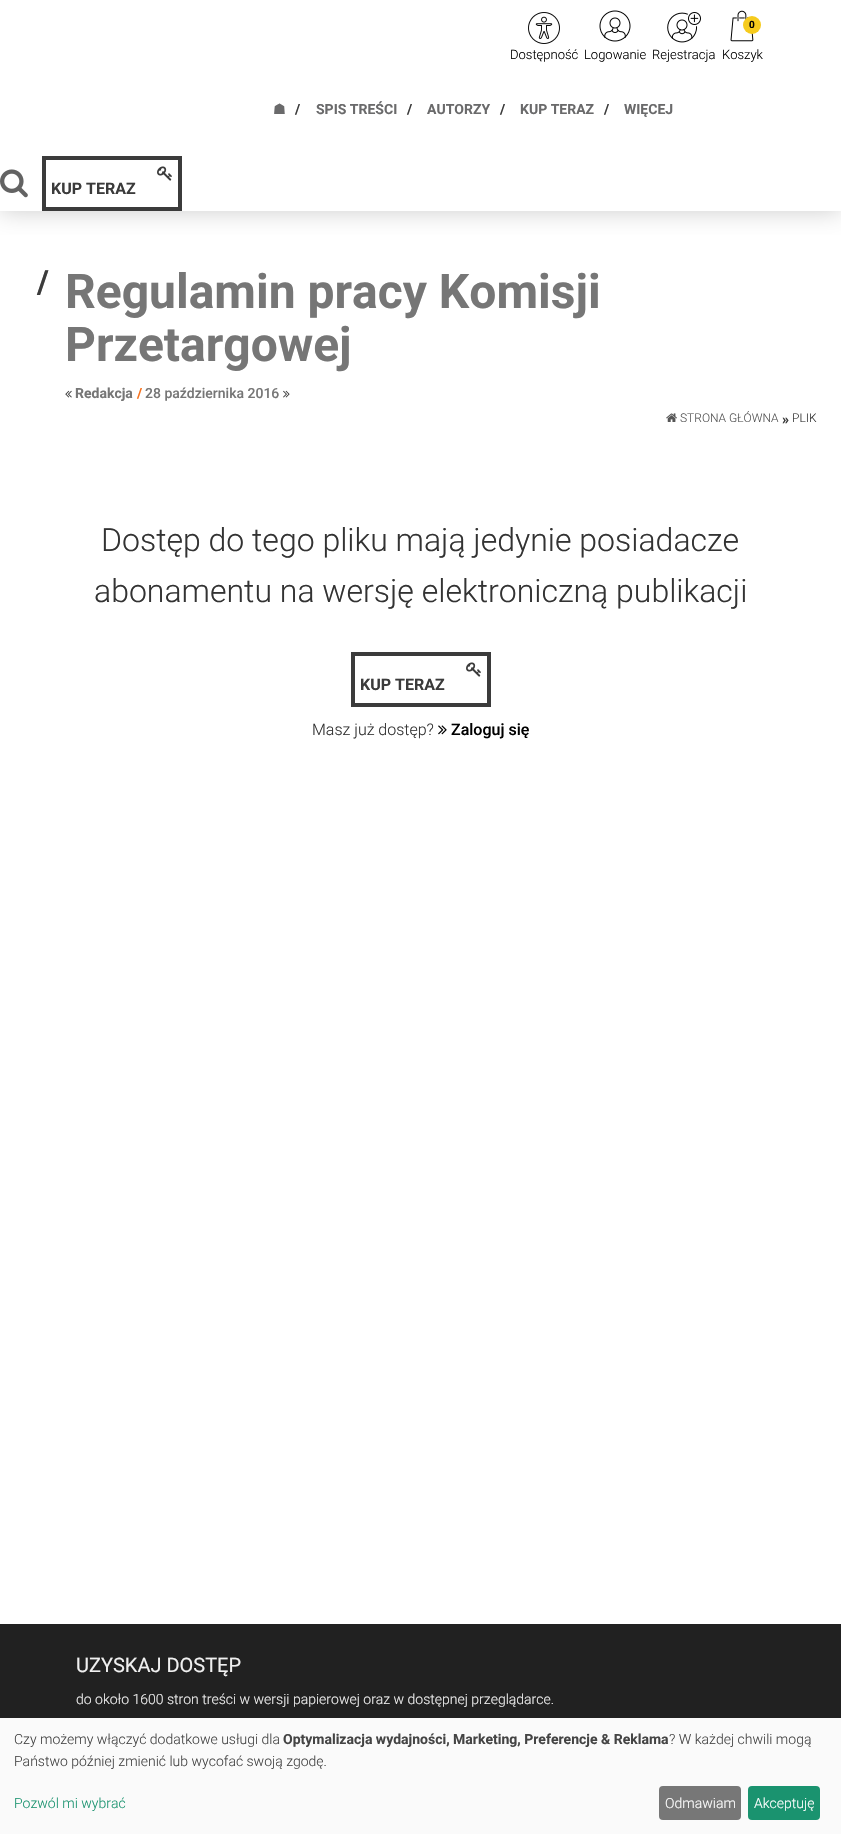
void draw(SkCanvas* canvas) {
    SkPaint paint;
    paint.setAntiAlias(true);
    canvas->clear(0xFFFFFFFF);
    canvas->save();
    canvas->clipRect(SkRect::MakeXYWH(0, 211, 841, 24));
    paint.setColor(0xFFCCCCCC);
    paint.setMaskFilter(SkMaskFilter::MakeBlur(kNormal_SkBlurStyle, 11.5f));
    canvas->drawRect(SkRect::MakeXYWH(0, 0, 841, 211), paint);
    paint.setMaskFilter(nullptr);
    canvas->restore();
    canvas->drawImageRect(SkImages::DeferredFromEncodedData(SkData::MakeFromFileName("img1.png")), SkRect::MakeXYWH(528, 12, 32, 32), SkSamplingOptions());
    SkFont font1(fontMgr->matchFamilyStyle("Roboto", SkFontStyle(300, SkFontStyle::kNormal_Width, SkFontStyle::kUpright_Slant)), 13);
    font1.setSubpixel(true);
    paint.setColor(0xFF000000);
    canvas->drawString("Dostępność", 510, 59, font1, paint);
    canvas->drawImageRect(SkImages::DeferredFromEncodedData(SkData::MakeFromFileName("img2.png")), SkRect::MakeXYWH(599, 10, 32, 32), SkSamplingOptions());
    canvas->drawString("Logowanie", 584, 59, font1, paint);
    canvas->drawImageRect(SkImages::DeferredFromEncodedData(SkData::MakeFromFileName("img3.png")), SkRect::MakeXYWH(667, 12, 34, 31), SkSamplingOptions());
    canvas->drawString("Rejestracja", 652, 59, font1, paint);
    canvas->drawImageRect(SkImages::DeferredFromEncodedData(SkData::MakeFromFileName("img4.png")), SkRect::MakeXYWH(730, 10, 24, 32), SkSamplingOptions());
    paint.setColor(0xFFF6CB1D);
    canvas->drawCircle(752, 25, 9, paint);
    SkFont font2(fontMgr->matchFamilyStyle("Roboto", SkFontStyle::Bold()), 10);
    font2.setSubpixel(true);
    paint.setColor(0xFF000000);
    canvas->drawString("0", 749, 28, font2, paint);
    canvas->drawString("Koszyk", 722, 59, font1, paint);
    SkFont font3(fontMgr->matchFamilyStyle("DejaVu Sans", SkFontStyle::Bold()), 14);
    font3.setSubpixel(true);
    paint.setColor(0xFF6A6A6B);
    canvas->drawString("☗", 273, 114, font3, paint);
    SkFont font4(fontMgr->matchFamilyStyle("Roboto", SkFontStyle::Bold()), 14);
    font4.setSubpixel(true);
    paint.setColor(0xFF3B3B3B);
    canvas->drawString("/", 295, 114, font4, paint);
    paint.setColor(0xFF6A6A6B);
    canvas->drawString("SPIS TREŚCI", 316, 114, font4, paint);
    paint.setColor(0xFF3B3B3B);
    canvas->drawString("/", 407, 114, font4, paint);
    paint.setColor(0xFF6A6A6B);
    canvas->drawString("AUTORZY", 427, 114, font4, paint);
    paint.setColor(0xFF3B3B3B);
    canvas->drawString("/", 500, 114, font4, paint);
    paint.setColor(0xFF6A6A6B);
    canvas->drawString("KUP TERAZ", 520, 114, font4, paint);
    paint.setColor(0xFF3B3B3B);
    canvas->drawString("/", 604, 114, font4, paint);
    paint.setColor(0xFF6A6A6B);
    canvas->drawString("WIĘCEJ", 624, 114, font4, paint);
    canvas->drawImageRect(SkImages::DeferredFromEncodedData(SkData::MakeFromFileName("img5.png")), SkRect::MakeXYWH(0, 169, 28, 29), SkSamplingOptions());
    paint.setStyle(SkPaint::kStroke_Style);
    paint.setStrokeWidth(4);
    paint.setColor(0xFF3B3B3B);
    canvas->drawRect(SkRect::MakeXYWH(44, 158, 136, 51), paint);
    canvas->drawImageRect(SkImages::DeferredFromEncodedData(SkData::MakeFromFileName("img6.png")), SkRect::MakeXYWH(157, 166, 15, 15), SkSamplingOptions());
    SkFont font5(fontMgr->matchFamilyStyle("Roboto", SkFontStyle::Bold()), 16);
    font5.setSubpixel(true);
    paint.setStyle(SkPaint::kFill_Style);
    canvas->drawString("KUP TERAZ", 51, 194, font5, paint);
    SkFont font6(fontMgr->matchFamilyStyle("Roboto", SkFontStyle::Bold()), 32);
    font6.setSubpixel(true);
    canvas->drawString("/", 37, 293, font6, paint);
    SkFont font7(fontMgr->matchFamilyStyle("Roboto", SkFontStyle::Bold()), 48);
    font7.setSubpixel(true);
    paint.setColor(0xFF767676);
    canvas->drawString("Regulamin pracy Komisji", 65, 308, font7, paint);
    canvas->drawString("Przetargowej", 65, 361, font7, paint);
    canvas->drawImageRect(SkImages::DeferredFromEncodedData(SkData::MakeFromFileName("img7.png")), SkRect::MakeXYWH(65, 390, 7, 8), SkSamplingOptions());
    canvas->drawString("Redakcja", 75, 398, font4, paint);
    paint.setColor(0xFFF8721D);
    canvas->drawString("/", 137, 398, font4, paint);
    SkFont font8(fontMgr->matchFamilyStyle("Roboto", SkFontStyle(500, SkFontStyle::kNormal_Width, SkFontStyle::kUpright_Slant)), 14);
    font8.setSubpixel(true);
    paint.setColor(0xFF767676);
    canvas->drawString("28 października 2016", 145, 398, font8, paint);
    canvas->drawImageRect(SkImages::DeferredFromEncodedData(SkData::MakeFromFileName("img8.png")), SkRect::MakeXYWH(283, 390, 7, 8), SkSamplingOptions());
    canvas->drawImageRect(SkImages::DeferredFromEncodedData(SkData::MakeFromFileName("img9.png")), SkRect::MakeXYWH(666, 413, 11, 9), SkSamplingOptions());
    SkFont font9(fontMgr->matchFamilyStyle("Roboto", SkFontStyle(300, SkFontStyle::kNormal_Width, SkFontStyle::kUpright_Slant)), 12);
    font9.setSubpixel(true);
    paint.setColor(0xFF555555);
    canvas->drawString("STRONA GŁÓWNA", 680, 422, font9, paint);
    paint.setColor(0xFF3B3B3B);
    canvas->drawString("»", 782, 424, font4, paint);
    paint.setColor(0xFF333333);
    canvas->drawString("PLIK", 792, 422, font9, paint);
    SkFont font10(fontMgr->matchFamilyStyle("Roboto", SkFontStyle(300, SkFontStyle::kNormal_Width, SkFontStyle::kUpright_Slant)), 32);
    font10.setSubpixel(true);
    canvas->drawString("Dostęp do tego pliku mają jedynie posiadacze", 101, 551, font10, paint);
    canvas->drawString("abonamentu na wersję elektroniczną publikacji", 94, 602, font10, paint);
    paint.setStyle(SkPaint::kStroke_Style);
    paint.setColor(0xFF3B3B3B);
    canvas->drawRect(SkRect::MakeXYWH(353, 654, 136, 51), paint);
    canvas->drawImageRect(SkImages::DeferredFromEncodedData(SkData::MakeFromFileName("img6.png")), SkRect::MakeXYWH(466, 662, 15, 15), SkSamplingOptions());
    paint.setStyle(SkPaint::kFill_Style);
    canvas->drawString("KUP TERAZ", 360, 690, font5, paint);
    SkFont font11(fontMgr->matchFamilyStyle("Roboto", SkFontStyle(300, SkFontStyle::kNormal_Width, SkFontStyle::kUpright_Slant)), 16);
    font11.setSubpixel(true);
    paint.setColor(0xFF333333);
    canvas->drawString("Masz już dostęp?", 312, 735, font11, paint);
    canvas->drawImageRect(SkImages::DeferredFromEncodedData(SkData::MakeFromFileName("img10.png")), SkRect::MakeXYWH(438, 725, 9, 10), SkSamplingOptions());
    SkFont font12(fontMgr->matchFamilyStyle("Roboto", SkFontStyle(500, SkFontStyle::kNormal_Width, SkFontStyle::kUpright_Slant)), 16);
    font12.setSubpixel(true);
    paint.setColor(0xFF000000);
    canvas->drawString("Zaloguj się", 451, 735, font12, paint);
    paint.setColor(0xFF212121);
    canvas->drawRect(SkRect::MakeXYWH(0, 1624, 841, 94), paint);
    SkFont font13(fontMgr->matchFamilyStyle("Roboto", SkFontStyle::Normal()), 20);
    font13.setSubpixel(true);
    paint.setColor(0xFFF0F0F0);
    canvas->drawString("UZYSKAJ DOSTĘP", 76, 1672, font13, paint);
    SkFont font14(fontMgr->matchFamilyStyle("Roboto", SkFontStyle(300, SkFontStyle::kNormal_Width, SkFontStyle::kUpright_Slant)), 14);
    font14.setSubpixel(true);
    canvas->drawString("do około 1600 stron treści w wersji papierowej oraz w dostępnej przeglądarce.", 76, 1704, font14, paint);
    paint.setColor(0xFFFAFAFA);
    canvas->drawRect(SkRect::MakeXYWH(0, 1718, 841, 116), paint);
    paint.setColor(0xFF444444);
    canvas->drawString("Czy możemy włączyć dodatkowe usługi dla", 14, 1744, font14, paint);
    canvas->drawString("Optymalizacja wydajności, Marketing, Preferencje & Reklama", 283, 1744, font4, paint);
    canvas->drawString("? W każdej chwili mogą", 669, 1744, font14, paint);
    canvas->drawString("Państwo później zmienić lub wycofać swoją zgodę.", 14, 1766, font14, paint);
    paint.setColor(0xFF1A936F);
    canvas->drawString("Pozwól mi wybrać", 14, 1808, font14, paint);
    paint.setColor(0xFF777777);
    canvas->drawRoundRect(SkRect::MakeXYWH(659, 1786, 82, 34), 4, 4, paint);
    paint.setColor(0xFFFFFFFF);
    canvas->drawString("Odmawiam", 665, 1808, font14, paint);
    paint.setColor(0xFF1A936F);
    canvas->drawRoundRect(SkRect::MakeXYWH(748, 1786, 72, 34), 4, 4, paint);
    paint.setColor(0xFFFFFFFF);
    canvas->drawString("Akceptuję", 754, 1808, font14, paint);
}
